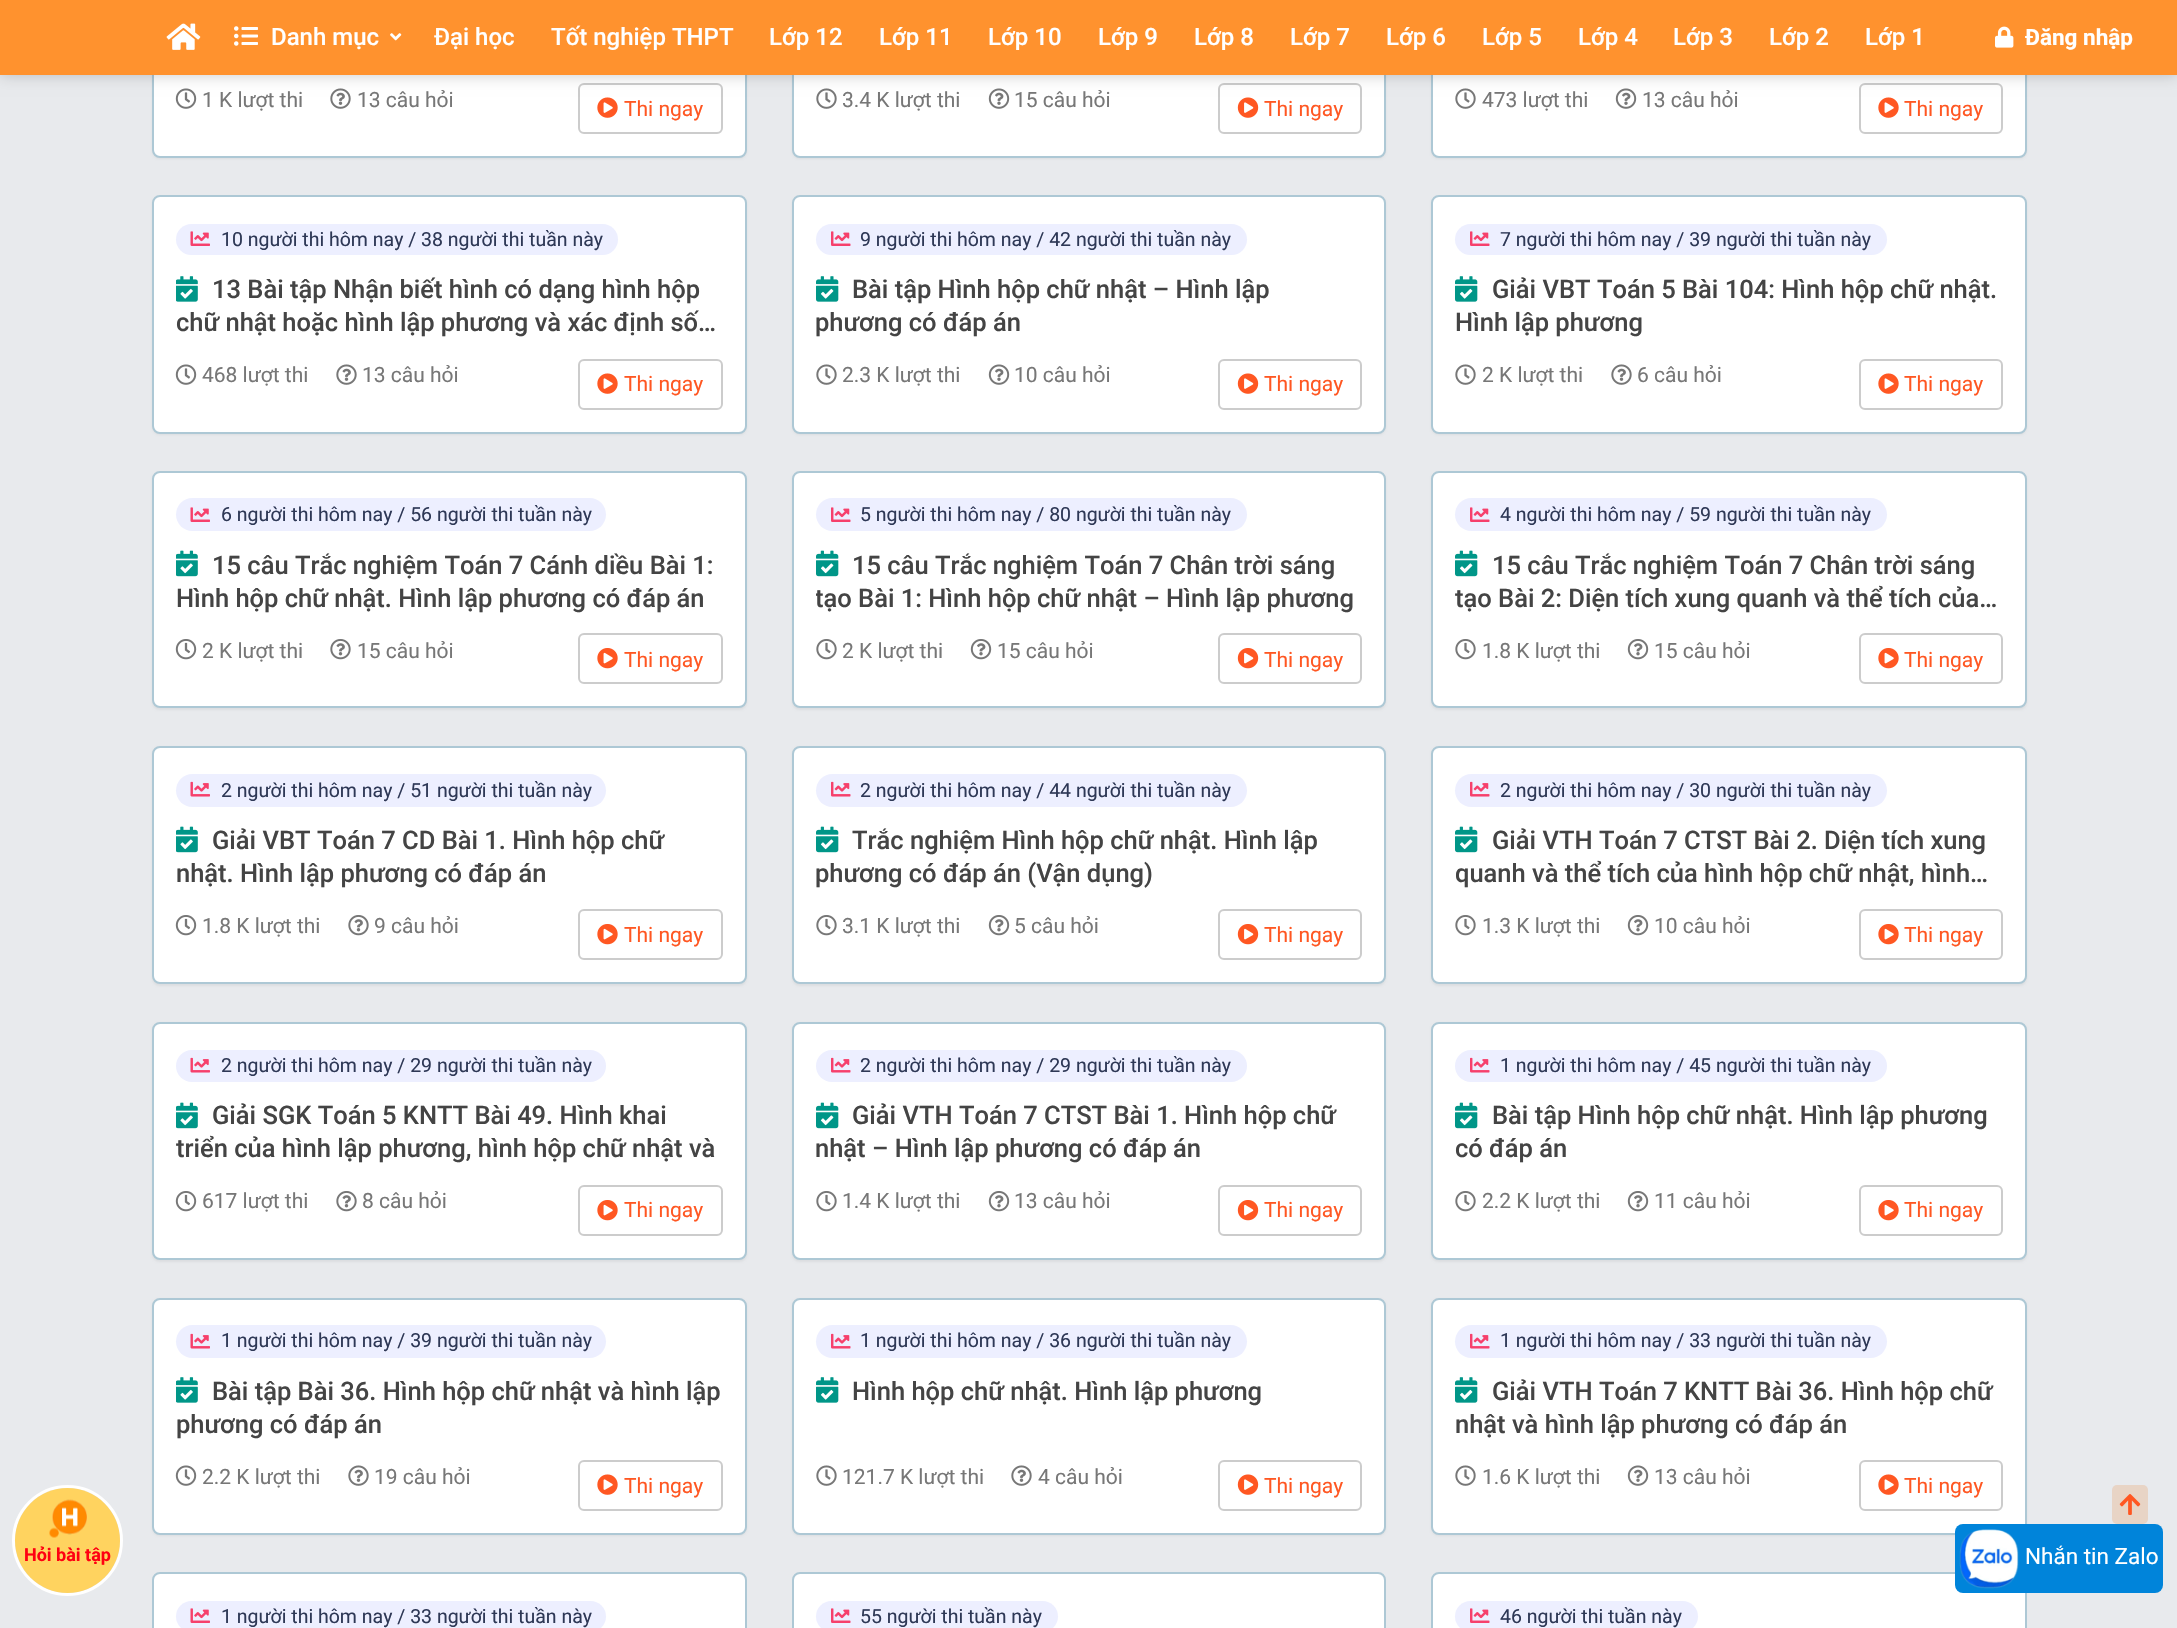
void draw(SkCanvas* canvas) {
    SkPaint paint;
    paint.setAntiAlias(true);
    canvas->clear(0xFFE8EAED);
    paint.setColor(0x0D000000);
    paint.setMaskFilter(SkMaskFilter::MakeBlur(kNormal_SkBlurStyle, 1));
    canvas->drawRoundRect(SkRect::MakeXYWH(152, -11, 595, 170), 8, 8, paint);
    paint.setMaskFilter(nullptr);
    paint.setColor(0xFFFFFFFF);
    canvas->drawRoundRect(SkRect::MakeXYWH(153, -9, 593, 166), 7, 7, paint);
    paint.setStyle(SkPaint::kStroke_Style);
    paint.setStrokeWidth(2);
    paint.setColor(0xFFADC8D5);
    canvas->drawRoundRect(SkRect::MakeXYWH(153, -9, 593, 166), 7, 7, paint);
    canvas->drawImageRect(SkImages::DeferredFromEncodedData(SkData::MakeFromFileName("img5.png")), SkRect::MakeXYWH(175, 88, 22, 21), SkSamplingOptions());
    canvas->drawImageRect(SkImages::DeferredFromEncodedData(SkData::MakeFromFileName("img6.png")), SkRect::MakeXYWH(330, 88, 21, 21), SkSamplingOptions());
    paint.setColor(0xFFCCCCCC);
    canvas->drawRoundRect(SkRect::MakeXYWH(579, 84, 143, 49), 5, 5, paint);
    canvas->drawImageRect(SkImages::DeferredFromEncodedData(SkData::MakeFromFileName("img7.png")), SkRect::MakeXYWH(597, 97, 21, 21), SkSamplingOptions());
    paint.setStyle(SkPaint::kFill_Style);
    paint.setColor(0x0D000000);
    paint.setMaskFilter(SkMaskFilter::MakeBlur(kNormal_SkBlurStyle, 1));
    canvas->drawRoundRect(SkRect::MakeXYWH(792, -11, 594, 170), 8, 8, paint);
    paint.setMaskFilter(nullptr);
    paint.setColor(0xFFFFFFFF);
    canvas->drawRoundRect(SkRect::MakeXYWH(793, -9, 592, 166), 7, 7, paint);
    paint.setStyle(SkPaint::kStroke_Style);
    paint.setColor(0xFFADC8D5);
    canvas->drawRoundRect(SkRect::MakeXYWH(793, -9, 592, 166), 7, 7, paint);
    canvas->drawImageRect(SkImages::DeferredFromEncodedData(SkData::MakeFromFileName("img8.png")), SkRect::MakeXYWH(816, 88, 21, 21), SkSamplingOptions());
    canvas->drawImageRect(SkImages::DeferredFromEncodedData(SkData::MakeFromFileName("img9.png")), SkRect::MakeXYWH(988, 88, 22, 21), SkSamplingOptions());
    paint.setColor(0xFFCCCCCC);
    canvas->drawRoundRect(SkRect::MakeXYWH(1219, 84, 142, 49), 5, 5, paint);
    canvas->drawImageRect(SkImages::DeferredFromEncodedData(SkData::MakeFromFileName("img10.png")), SkRect::MakeXYWH(1237, 97, 22, 21), SkSamplingOptions());
    paint.setStyle(SkPaint::kFill_Style);
    paint.setColor(0x0D000000);
    paint.setMaskFilter(SkMaskFilter::MakeBlur(kNormal_SkBlurStyle, 1));
    canvas->drawRoundRect(SkRect::MakeXYWH(1431, -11, 596, 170), 8, 8, paint);
    paint.setMaskFilter(nullptr);
    paint.setColor(0xFFFFFFFF);
    canvas->drawRoundRect(SkRect::MakeXYWH(1432, -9, 594, 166), 7, 7, paint);
    paint.setStyle(SkPaint::kStroke_Style);
    paint.setColor(0xFFADC8D5);
    canvas->drawRoundRect(SkRect::MakeXYWH(1432, -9, 594, 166), 7, 7, paint);
    canvas->drawImageRect(SkImages::DeferredFromEncodedData(SkData::MakeFromFileName("img8.png")), SkRect::MakeXYWH(1455, 88, 21, 21), SkSamplingOptions());
    canvas->drawImageRect(SkImages::DeferredFromEncodedData(SkData::MakeFromFileName("img9.png")), SkRect::MakeXYWH(1615, 88, 22, 21), SkSamplingOptions());
    paint.setColor(0xFFCCCCCC);
    canvas->drawRoundRect(SkRect::MakeXYWH(1860, 84, 142, 49), 5, 5, paint);
    canvas->drawImageRect(SkImages::DeferredFromEncodedData(SkData::MakeFromFileName("img7.png")), SkRect::MakeXYWH(1878, 97, 21, 21), SkSamplingOptions());
    paint.setStyle(SkPaint::kFill_Style);
    paint.setColor(0x33000000);
    paint.setMaskFilter(SkMaskFilter::MakeBlur(kNormal_SkBlurStyle, 7.5f));
    canvas->drawRect(SkRect::MakeXYWH(0, 0, 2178, 75), paint);
    paint.setMaskFilter(nullptr);
    paint.setColor(0xFFFF922E);
    canvas->drawRect(SkRect::MakeXYWH(0, 0, 2177, 75), paint);
    canvas->drawImageRect(SkImages::DeferredFromEncodedData(SkData::MakeFromFileName("img1.png")), SkRect::MakeXYWH(166, 23, 35, 27), SkSamplingOptions());
    canvas->drawImageRect(SkImages::DeferredFromEncodedData(SkData::MakeFromFileName("img2.png")), SkRect::MakeXYWH(234, 26, 24, 20), SkSamplingOptions());
    SkFont font1(fontMgr->matchFamilyStyle("Roboto", SkFontStyle(500, SkFontStyle::kNormal_Width, SkFontStyle::kUpright_Slant)), 24);
    font1.setSubpixel(true);
    paint.setColor(0xFFFFFFFF);
    canvas->drawString("Danh mục", 271, 45, font1, paint);
    canvas->drawImageRect(SkImages::DeferredFromEncodedData(SkData::MakeFromFileName("img3.png")), SkRect::MakeXYWH(390, 33, 12, 8), SkSamplingOptions());
    canvas->drawString("Đại học", 434, 45, font1, paint);
    canvas->drawString("Tốt nghiệp THPT", 551, 45, font1, paint);
    canvas->drawString("Lớp 12", 769, 45, font1, paint);
    canvas->drawString("Lớp 11", 879, 45, font1, paint);
    canvas->drawString("Lớp 10", 988, 45, font1, paint);
    canvas->drawString("Lớp 9", 1098, 45, font1, paint);
    canvas->drawString("Lớp 8", 1194, 45, font1, paint);
    canvas->drawString("Lớp 7", 1290, 45, font1, paint);
    canvas->drawString("Lớp 6", 1386, 45, font1, paint);
    canvas->drawString("Lớp 5", 1482, 45, font1, paint);
    canvas->drawString("Lớp 4", 1578, 45, font1, paint);
    canvas->drawString("Lớp 3", 1673, 45, font1, paint);
    canvas->drawString("Lớp 2", 1769, 45, font1, paint);
    canvas->drawString("Lớp 1", 1865, 45, font1, paint);
    canvas->drawImageRect(SkImages::DeferredFromEncodedData(SkData::MakeFromFileName("img4.png")), SkRect::MakeXYWH(1995, 26, 19, 22), SkSamplingOptions());
    SkFont font2(fontMgr->matchFamilyStyle("Roboto", SkFontStyle::Bold()), 22.5f);
    font2.setSubpixel(true);
    canvas->drawString("Đăng nhập", 2025, 45, font2, paint);
    SkFont font3(fontMgr->matchFamilyStyle("Roboto", SkFontStyle::Normal()), 21);
    font3.setSubpixel(true);
    paint.setColor(0xFF777777);
    canvas->drawString("1 K lượt thi", 202, 107, font3, paint);
    canvas->drawString("13 câu hỏi", 357, 107, font3, paint);
    paint.setColor(0xFFFF5722);
    canvas->drawString("Thi ngay", 624, 116, font3, paint);
    paint.setColor(0xFF777777);
    canvas->drawString("3.4 K lượt thi", 842, 107, font3, paint);
    canvas->drawString("15 câu hỏi", 1014, 107, font3, paint);
    paint.setColor(0xFFFF5722);
    canvas->drawString("Thi ngay", 1264, 116, font3, paint);
    paint.setColor(0xFF777777);
    canvas->drawString("473 lượt thi", 1482, 107, font3, paint);
    canvas->drawString("13 câu hỏi", 1642, 107, font3, paint);
    paint.setColor(0xFFFF5722);
    canvas->drawString("Thi ngay", 1904, 116, font3, paint);
    paint.setColor(0x0D000000);
    paint.setMaskFilter(SkMaskFilter::MakeBlur(kNormal_SkBlurStyle, 1));
    canvas->drawRoundRect(SkRect::MakeXYWH(152, 197, 595, 238), 8, 8, paint);
    paint.setMaskFilter(nullptr);
    paint.setColor(0xFFFFFFFF);
    canvas->drawRoundRect(SkRect::MakeXYWH(153, 196, 593, 237), 7, 7, paint);
    paint.setStyle(SkPaint::kStroke_Style);
    paint.setColor(0xFFADC8D5);
    canvas->drawRoundRect(SkRect::MakeXYWH(153, 196, 593, 237), 7, 7, paint);
    paint.setStyle(SkPaint::kFill_Style);
    paint.setColor(0xFFEDEFFF);
    canvas->drawRoundRect(SkRect::MakeXYWH(176, 224, 442, 31), 15.5f, 15.5f, paint);
    canvas->drawImageRect(SkImages::DeferredFromEncodedData(SkData::MakeFromFileName("img11.png")), SkRect::MakeXYWH(190, 231, 20, 15), SkSamplingOptions());
    SkFont font4(fontMgr->matchFamilyStyle("Roboto", SkFontStyle::Normal()), 19.5f);
    font4.setSubpixel(true);
    paint.setColor(0xFF2E3856);
    canvas->drawString("10 người thi hôm nay / 38 người thi tuần này", 221, 246, font4, paint);
    canvas->drawImageRect(SkImages::DeferredFromEncodedData(SkData::MakeFromFileName("img12.png")), SkRect::MakeXYWH(176, 276, 22, 26), SkSamplingOptions());
    SkFont font5(fontMgr->matchFamilyStyle("Roboto", SkFontStyle(500, SkFontStyle::kNormal_Width, SkFontStyle::kUpright_Slant)), 25.5f);
    font5.setSubpixel(true);
    paint.setColor(0xFF444444);
    canvas->drawString("13 Bài tập Nhận biết hình có dạng hình hộp", 212, 298, font5, paint);
    canvas->drawString("chữ nhật hoặc hình lập phương và xác định số…", 176, 331, font5, paint);
    canvas->drawImageRect(SkImages::DeferredFromEncodedData(SkData::MakeFromFileName("img5.png")), SkRect::MakeXYWH(175, 364, 22, 21), SkSamplingOptions());
    paint.setColor(0xFF777777);
    canvas->drawString("468 lượt thi", 202, 382, font3, paint);
    canvas->drawImageRect(SkImages::DeferredFromEncodedData(SkData::MakeFromFileName("img6.png")), SkRect::MakeXYWH(336, 364, 21, 21), SkSamplingOptions());
    canvas->drawString("13 câu hỏi", 362, 382, font3, paint);
    paint.setStyle(SkPaint::kStroke_Style);
    paint.setColor(0xFFCCCCCC);
    canvas->drawRoundRect(SkRect::MakeXYWH(579, 360, 143, 49), 5, 5, paint);
    canvas->drawImageRect(SkImages::DeferredFromEncodedData(SkData::MakeFromFileName("img7.png")), SkRect::MakeXYWH(597, 373, 21, 21), SkSamplingOptions());
    paint.setStyle(SkPaint::kFill_Style);
    paint.setColor(0xFFFF5722);
    canvas->drawString("Thi ngay", 624, 391, font3, paint);
    paint.setColor(0x0D000000);
    paint.setMaskFilter(SkMaskFilter::MakeBlur(kNormal_SkBlurStyle, 1));
    canvas->drawRoundRect(SkRect::MakeXYWH(792, 197, 594, 238), 8, 8, paint);
    paint.setMaskFilter(nullptr);
    paint.setColor(0xFFFFFFFF);
    canvas->drawRoundRect(SkRect::MakeXYWH(793, 196, 592, 237), 7, 7, paint);
    paint.setStyle(SkPaint::kStroke_Style);
    paint.setColor(0xFFADC8D5);
    canvas->drawRoundRect(SkRect::MakeXYWH(793, 196, 592, 237), 7, 7, paint);
    paint.setStyle(SkPaint::kFill_Style);
    paint.setColor(0xFFEDEFFF);
    canvas->drawRoundRect(SkRect::MakeXYWH(816, 224, 431, 31), 15.5f, 15.5f, paint);
    canvas->drawImageRect(SkImages::DeferredFromEncodedData(SkData::MakeFromFileName("img13.png")), SkRect::MakeXYWH(831, 231, 20, 15), SkSamplingOptions());
    paint.setColor(0xFF2E3856);
    canvas->drawString("9 người thi hôm nay / 42 người thi tuần này", 860, 246, font4, paint);
    canvas->drawImageRect(SkImages::DeferredFromEncodedData(SkData::MakeFromFileName("img14.png")), SkRect::MakeXYWH(816, 276, 23, 26), SkSamplingOptions());
    paint.setColor(0xFF444444);
    canvas->drawString("Bài tập Hình hộp chữ nhật – Hình lập", 852, 298, font5, paint);
    canvas->drawString("phương có đáp án", 815, 331, font5, paint);
    canvas->drawImageRect(SkImages::DeferredFromEncodedData(SkData::MakeFromFileName("img8.png")), SkRect::MakeXYWH(816, 364, 21, 21), SkSamplingOptions());
    paint.setColor(0xFF777777);
    canvas->drawString("2.3 K lượt thi", 842, 382, font3, paint);
    canvas->drawImageRect(SkImages::DeferredFromEncodedData(SkData::MakeFromFileName("img9.png")), SkRect::MakeXYWH(988, 364, 22, 21), SkSamplingOptions());
    canvas->drawString("10 câu hỏi", 1014, 382, font3, paint);
    paint.setStyle(SkPaint::kStroke_Style);
    paint.setColor(0xFFCCCCCC);
    canvas->drawRoundRect(SkRect::MakeXYWH(1219, 360, 142, 49), 5, 5, paint);
    canvas->drawImageRect(SkImages::DeferredFromEncodedData(SkData::MakeFromFileName("img10.png")), SkRect::MakeXYWH(1237, 373, 22, 21), SkSamplingOptions());
    paint.setStyle(SkPaint::kFill_Style);
    paint.setColor(0xFFFF5722);
    canvas->drawString("Thi ngay", 1264, 391, font3, paint);
    paint.setColor(0x0D000000);
    paint.setMaskFilter(SkMaskFilter::MakeBlur(kNormal_SkBlurStyle, 1));
    canvas->drawRoundRect(SkRect::MakeXYWH(1431, 197, 596, 238), 8, 8, paint);
    paint.setMaskFilter(nullptr);
    paint.setColor(0xFFFFFFFF);
    canvas->drawRoundRect(SkRect::MakeXYWH(1432, 196, 594, 237), 7, 7, paint);
    paint.setStyle(SkPaint::kStroke_Style);
    paint.setColor(0xFFADC8D5);
    canvas->drawRoundRect(SkRect::MakeXYWH(1432, 196, 594, 237), 7, 7, paint);
    paint.setStyle(SkPaint::kFill_Style);
    paint.setColor(0xFFEDEFFF);
    canvas->drawRoundRect(SkRect::MakeXYWH(1455, 224, 432, 31), 15.5f, 15.5f, paint);
    canvas->drawImageRect(SkImages::DeferredFromEncodedData(SkData::MakeFromFileName("img13.png")), SkRect::MakeXYWH(1470, 231, 20, 15), SkSamplingOptions());
    paint.setColor(0xFF2E3856);
    canvas->drawString("7 người thi hôm nay / 39 người thi tuần này", 1500, 246, font4, paint);
    canvas->drawImageRect(SkImages::DeferredFromEncodedData(SkData::MakeFromFileName("img14.png")), SkRect::MakeXYWH(1455, 276, 23, 26), SkSamplingOptions());
    paint.setColor(0xFF444444);
    canvas->drawString("Giải VBT Toán 5 Bài 104: Hình hộp chữ nhật.", 1492, 298, font5, paint);
    canvas->drawString("Hình lập phương", 1455, 331, font5, paint);
    canvas->drawImageRect(SkImages::DeferredFromEncodedData(SkData::MakeFromFileName("img8.png")), SkRect::MakeXYWH(1455, 364, 21, 21), SkSamplingOptions());
    paint.setColor(0xFF777777);
    canvas->drawString("2 K lượt thi", 1482, 382, font3, paint);
    canvas->drawImageRect(SkImages::DeferredFromEncodedData(SkData::MakeFromFileName("img6.png")), SkRect::MakeXYWH(1611, 364, 21, 21), SkSamplingOptions());
    canvas->drawString("6 câu hỏi", 1637, 382, font3, paint);
    paint.setStyle(SkPaint::kStroke_Style);
    paint.setColor(0xFFCCCCCC);
    canvas->drawRoundRect(SkRect::MakeXYWH(1860, 360, 142, 49), 5, 5, paint);
    canvas->drawImageRect(SkImages::DeferredFromEncodedData(SkData::MakeFromFileName("img7.png")), SkRect::MakeXYWH(1878, 373, 21, 21), SkSamplingOptions());
    paint.setStyle(SkPaint::kFill_Style);
    paint.setColor(0xFFFF5722);
    canvas->drawString("Thi ngay", 1904, 391, font3, paint);
    paint.setColor(0x0D000000);
    paint.setMaskFilter(SkMaskFilter::MakeBlur(kNormal_SkBlurStyle, 1));
    canvas->drawRoundRect(SkRect::MakeXYWH(152, 473, 595, 237), 8, 8, paint);
    paint.setMaskFilter(nullptr);
    paint.setColor(0xFFFFFFFF);
    canvas->drawRoundRect(SkRect::MakeXYWH(153, 472, 593, 235), 7, 7, paint);
    paint.setStyle(SkPaint::kStroke_Style);
    paint.setColor(0xFFADC8D5);
    canvas->drawRoundRect(SkRect::MakeXYWH(153, 472, 593, 235), 7, 7, paint);
    paint.setStyle(SkPaint::kFill_Style);
    paint.setColor(0xFFEDEFFF);
    canvas->drawRoundRect(SkRect::MakeXYWH(176, 498, 430, 33), 16.5f, 16.5f, paint);
    canvas->drawImageRect(SkImages::DeferredFromEncodedData(SkData::MakeFromFileName("img11.png")), SkRect::MakeXYWH(190, 507, 20, 15), SkSamplingOptions());
    paint.setColor(0xFF2E3856);
    canvas->drawString("6 người thi hôm nay / 56 người thi tuần này", 221, 521, font4, paint);
    canvas->drawImageRect(SkImages::DeferredFromEncodedData(SkData::MakeFromFileName("img15.png")), SkRect::MakeXYWH(176, 550, 22, 27), SkSamplingOptions());
    paint.setColor(0xFF444444);
    canvas->drawString("15 câu Trắc nghiệm Toán 7 Cánh diều Bài 1:", 212, 574, font5, paint);
    canvas->drawString("Hình hộp chữ nhật. Hình lập phương có đáp án", 176, 607, font5, paint);
    canvas->drawImageRect(SkImages::DeferredFromEncodedData(SkData::MakeFromFileName("img16.png")), SkRect::MakeXYWH(175, 639, 22, 21), SkSamplingOptions());
    paint.setColor(0xFF777777);
    canvas->drawString("2 K lượt thi", 202, 658, font3, paint);
    canvas->drawImageRect(SkImages::DeferredFromEncodedData(SkData::MakeFromFileName("img17.png")), SkRect::MakeXYWH(330, 639, 21, 21), SkSamplingOptions());
    canvas->drawString("15 câu hỏi", 357, 658, font3, paint);
    paint.setStyle(SkPaint::kStroke_Style);
    paint.setColor(0xFFCCCCCC);
    canvas->drawRoundRect(SkRect::MakeXYWH(579, 634, 143, 49), 5, 5, paint);
    canvas->drawImageRect(SkImages::DeferredFromEncodedData(SkData::MakeFromFileName("img18.png")), SkRect::MakeXYWH(597, 648, 21, 21), SkSamplingOptions());
    paint.setStyle(SkPaint::kFill_Style);
    paint.setColor(0xFFFF5722);
    canvas->drawString("Thi ngay", 624, 667, font3, paint);
    paint.setColor(0x0D000000);
    paint.setMaskFilter(SkMaskFilter::MakeBlur(kNormal_SkBlurStyle, 1));
    canvas->drawRoundRect(SkRect::MakeXYWH(792, 473, 594, 237), 8, 8, paint);
    paint.setMaskFilter(nullptr);
    paint.setColor(0xFFFFFFFF);
    canvas->drawRoundRect(SkRect::MakeXYWH(793, 472, 592, 235), 7, 7, paint);
    paint.setStyle(SkPaint::kStroke_Style);
    paint.setColor(0xFFADC8D5);
    canvas->drawRoundRect(SkRect::MakeXYWH(793, 472, 592, 235), 7, 7, paint);
    paint.setStyle(SkPaint::kFill_Style);
    paint.setColor(0xFFEDEFFF);
    canvas->drawRoundRect(SkRect::MakeXYWH(816, 498, 431, 33), 16.5f, 16.5f, paint);
    canvas->drawImageRect(SkImages::DeferredFromEncodedData(SkData::MakeFromFileName("img13.png")), SkRect::MakeXYWH(831, 507, 20, 15), SkSamplingOptions());
    paint.setColor(0xFF2E3856);
    canvas->drawString("5 người thi hôm nay / 80 người thi tuần này", 860, 521, font4, paint);
    canvas->drawImageRect(SkImages::DeferredFromEncodedData(SkData::MakeFromFileName("img19.png")), SkRect::MakeXYWH(816, 550, 23, 27), SkSamplingOptions());
    paint.setColor(0xFF444444);
    canvas->drawString("15 câu Trắc nghiệm Toán 7 Chân trời sáng", 852, 574, font5, paint);
    canvas->save();
    canvas->clipRect(SkRect::MakeXYWH(816, 548, 546, 70));
    canvas->drawString("tạo Bài 1: Hình hộp chữ nhật – Hình lập phương", 815, 607, font5, paint);
    canvas->restore();
    canvas->drawImageRect(SkImages::DeferredFromEncodedData(SkData::MakeFromFileName("img20.png")), SkRect::MakeXYWH(816, 639, 21, 21), SkSamplingOptions());
    paint.setColor(0xFF777777);
    canvas->drawString("2 K lượt thi", 842, 658, font3, paint);
    canvas->drawImageRect(SkImages::DeferredFromEncodedData(SkData::MakeFromFileName("img21.png")), SkRect::MakeXYWH(970, 639, 22, 21), SkSamplingOptions());
    canvas->drawString("15 câu hỏi", 997, 658, font3, paint);
    paint.setStyle(SkPaint::kStroke_Style);
    paint.setColor(0xFFCCCCCC);
    canvas->drawRoundRect(SkRect::MakeXYWH(1219, 634, 142, 49), 5, 5, paint);
    canvas->drawImageRect(SkImages::DeferredFromEncodedData(SkData::MakeFromFileName("img22.png")), SkRect::MakeXYWH(1237, 648, 22, 21), SkSamplingOptions());
    paint.setStyle(SkPaint::kFill_Style);
    paint.setColor(0xFFFF5722);
    canvas->drawString("Thi ngay", 1264, 667, font3, paint);
    paint.setColor(0x0D000000);
    paint.setMaskFilter(SkMaskFilter::MakeBlur(kNormal_SkBlurStyle, 1));
    canvas->drawRoundRect(SkRect::MakeXYWH(1431, 473, 596, 237), 8, 8, paint);
    paint.setMaskFilter(nullptr);
    paint.setColor(0xFFFFFFFF);
    canvas->drawRoundRect(SkRect::MakeXYWH(1432, 472, 594, 235), 7, 7, paint);
    paint.setStyle(SkPaint::kStroke_Style);
    paint.setColor(0xFFADC8D5);
    canvas->drawRoundRect(SkRect::MakeXYWH(1432, 472, 594, 235), 7, 7, paint);
    paint.setStyle(SkPaint::kFill_Style);
    paint.setColor(0xFFEDEFFF);
    canvas->drawRoundRect(SkRect::MakeXYWH(1455, 498, 432, 33), 16.5f, 16.5f, paint);
    canvas->drawImageRect(SkImages::DeferredFromEncodedData(SkData::MakeFromFileName("img13.png")), SkRect::MakeXYWH(1470, 507, 20, 15), SkSamplingOptions());
    paint.setColor(0xFF2E3856);
    canvas->drawString("4 người thi hôm nay / 59 người thi tuần này", 1500, 521, font4, paint);
    canvas->drawImageRect(SkImages::DeferredFromEncodedData(SkData::MakeFromFileName("img19.png")), SkRect::MakeXYWH(1455, 550, 23, 27), SkSamplingOptions());
    paint.setColor(0xFF444444);
    canvas->drawString("15 câu Trắc nghiệm Toán 7 Chân trời sáng", 1492, 574, font5, paint);
    canvas->drawString("tạo Bài 2: Diện tích xung quanh và thể tích của…", 1455, 607, font5, paint);
    canvas->drawImageRect(SkImages::DeferredFromEncodedData(SkData::MakeFromFileName("img20.png")), SkRect::MakeXYWH(1455, 639, 21, 21), SkSamplingOptions());
    paint.setColor(0xFF777777);
    canvas->drawString("1.8 K lượt thi", 1482, 658, font3, paint);
    canvas->drawImageRect(SkImages::DeferredFromEncodedData(SkData::MakeFromFileName("img21.png")), SkRect::MakeXYWH(1627, 639, 22, 21), SkSamplingOptions());
    canvas->drawString("15 câu hỏi", 1654, 658, font3, paint);
    paint.setStyle(SkPaint::kStroke_Style);
    paint.setColor(0xFFCCCCCC);
    canvas->drawRoundRect(SkRect::MakeXYWH(1860, 634, 142, 49), 5, 5, paint);
    canvas->drawImageRect(SkImages::DeferredFromEncodedData(SkData::MakeFromFileName("img18.png")), SkRect::MakeXYWH(1878, 648, 21, 21), SkSamplingOptions());
    paint.setStyle(SkPaint::kFill_Style);
    paint.setColor(0xFFFF5722);
    canvas->drawString("Thi ngay", 1904, 667, font3, paint);
    paint.setColor(0x0D000000);
    paint.setMaskFilter(SkMaskFilter::MakeBlur(kNormal_SkBlurStyle, 1));
    canvas->drawRoundRect(SkRect::MakeXYWH(152, 747, 595, 239), 8, 8, paint);
    paint.setMaskFilter(nullptr);
    paint.setColor(0xFFFFFFFF);
    canvas->drawRoundRect(SkRect::MakeXYWH(153, 747, 593, 236), 7, 7, paint);
    paint.setStyle(SkPaint::kStroke_Style);
    paint.setColor(0xFFADC8D5);
    canvas->drawRoundRect(SkRect::MakeXYWH(153, 747, 593, 236), 7, 7, paint);
    paint.setStyle(SkPaint::kFill_Style);
    paint.setColor(0xFFEDEFFF);
    canvas->drawRoundRect(SkRect::MakeXYWH(176, 774, 430, 33), 16.5f, 16.5f, paint);
    canvas->drawImageRect(SkImages::DeferredFromEncodedData(SkData::MakeFromFileName("img23.png")), SkRect::MakeXYWH(190, 781, 20, 16), SkSamplingOptions());
    paint.setColor(0xFF2E3856);
    canvas->drawString("2 người thi hôm nay / 51 người thi tuần này", 221, 797, font4, paint);
    canvas->drawImageRect(SkImages::DeferredFromEncodedData(SkData::MakeFromFileName("img15.png")), SkRect::MakeXYWH(176, 826, 22, 27), SkSamplingOptions());
    paint.setColor(0xFF444444);
    canvas->drawString("Giải VBT Toán 7 CD Bài 1. Hình hộp chữ", 212, 849, font5, paint);
    canvas->drawString("nhật. Hình lập phương có đáp án", 176, 882, font5, paint);
    canvas->drawImageRect(SkImages::DeferredFromEncodedData(SkData::MakeFromFileName("img16.png")), SkRect::MakeXYWH(175, 915, 22, 21), SkSamplingOptions());
    paint.setColor(0xFF777777);
    canvas->drawString("1.8 K lượt thi", 202, 933, font3, paint);
    canvas->drawImageRect(SkImages::DeferredFromEncodedData(SkData::MakeFromFileName("img17.png")), SkRect::MakeXYWH(348, 915, 21, 21), SkSamplingOptions());
    canvas->drawString("9 câu hỏi", 374, 933, font3, paint);
    paint.setStyle(SkPaint::kStroke_Style);
    paint.setColor(0xFFCCCCCC);
    canvas->drawRoundRect(SkRect::MakeXYWH(579, 910, 143, 49), 5, 5, paint);
    canvas->drawImageRect(SkImages::DeferredFromEncodedData(SkData::MakeFromFileName("img18.png")), SkRect::MakeXYWH(597, 924, 21, 21), SkSamplingOptions());
    paint.setStyle(SkPaint::kFill_Style);
    paint.setColor(0xFFFF5722);
    canvas->drawString("Thi ngay", 624, 942, font3, paint);
    paint.setColor(0x0D000000);
    paint.setMaskFilter(SkMaskFilter::MakeBlur(kNormal_SkBlurStyle, 1));
    canvas->drawRoundRect(SkRect::MakeXYWH(792, 747, 594, 239), 8, 8, paint);
    paint.setMaskFilter(nullptr);
    paint.setColor(0xFFFFFFFF);
    canvas->drawRoundRect(SkRect::MakeXYWH(793, 747, 592, 236), 7, 7, paint);
    paint.setStyle(SkPaint::kStroke_Style);
    paint.setColor(0xFFADC8D5);
    canvas->drawRoundRect(SkRect::MakeXYWH(793, 747, 592, 236), 7, 7, paint);
    paint.setStyle(SkPaint::kFill_Style);
    paint.setColor(0xFFEDEFFF);
    canvas->drawRoundRect(SkRect::MakeXYWH(816, 774, 431, 33), 16.5f, 16.5f, paint);
    canvas->drawImageRect(SkImages::DeferredFromEncodedData(SkData::MakeFromFileName("img24.png")), SkRect::MakeXYWH(831, 781, 20, 16), SkSamplingOptions());
    paint.setColor(0xFF2E3856);
    canvas->drawString("2 người thi hôm nay / 44 người thi tuần này", 860, 797, font4, paint);
    canvas->drawImageRect(SkImages::DeferredFromEncodedData(SkData::MakeFromFileName("img19.png")), SkRect::MakeXYWH(816, 826, 23, 27), SkSamplingOptions());
    paint.setColor(0xFF444444);
    canvas->drawString("Trắc nghiệm Hình hộp chữ nhật. Hình lập", 852, 849, font5, paint);
    canvas->drawString("phương có đáp án (Vận dụng)", 815, 882, font5, paint);
    canvas->drawImageRect(SkImages::DeferredFromEncodedData(SkData::MakeFromFileName("img20.png")), SkRect::MakeXYWH(816, 915, 21, 21), SkSamplingOptions());
    paint.setColor(0xFF777777);
    canvas->drawString("3.1 K lượt thi", 842, 933, font3, paint);
    canvas->drawImageRect(SkImages::DeferredFromEncodedData(SkData::MakeFromFileName("img21.png")), SkRect::MakeXYWH(988, 915, 22, 21), SkSamplingOptions());
    canvas->drawString("5 câu hỏi", 1014, 933, font3, paint);
    paint.setStyle(SkPaint::kStroke_Style);
    paint.setColor(0xFFCCCCCC);
    canvas->drawRoundRect(SkRect::MakeXYWH(1219, 910, 142, 49), 5, 5, paint);
    canvas->drawImageRect(SkImages::DeferredFromEncodedData(SkData::MakeFromFileName("img22.png")), SkRect::MakeXYWH(1237, 924, 22, 21), SkSamplingOptions());
    paint.setStyle(SkPaint::kFill_Style);
    paint.setColor(0xFFFF5722);
    canvas->drawString("Thi ngay", 1264, 942, font3, paint);
    paint.setColor(0x0D000000);
    paint.setMaskFilter(SkMaskFilter::MakeBlur(kNormal_SkBlurStyle, 1));
    canvas->drawRoundRect(SkRect::MakeXYWH(1431, 747, 596, 239), 8, 8, paint);
    paint.setMaskFilter(nullptr);
    paint.setColor(0xFFFFFFFF);
    canvas->drawRoundRect(SkRect::MakeXYWH(1432, 747, 594, 236), 7, 7, paint);
    paint.setStyle(SkPaint::kStroke_Style);
    paint.setColor(0xFFADC8D5);
    canvas->drawRoundRect(SkRect::MakeXYWH(1432, 747, 594, 236), 7, 7, paint);
    paint.setStyle(SkPaint::kFill_Style);
    paint.setColor(0xFFEDEFFF);
    canvas->drawRoundRect(SkRect::MakeXYWH(1455, 774, 432, 33), 16.5f, 16.5f, paint);
    canvas->drawImageRect(SkImages::DeferredFromEncodedData(SkData::MakeFromFileName("img24.png")), SkRect::MakeXYWH(1470, 781, 20, 16), SkSamplingOptions());
    paint.setColor(0xFF2E3856);
    canvas->drawString("2 người thi hôm nay / 30 người thi tuần này", 1500, 797, font4, paint);
    canvas->drawImageRect(SkImages::DeferredFromEncodedData(SkData::MakeFromFileName("img19.png")), SkRect::MakeXYWH(1455, 826, 23, 27), SkSamplingOptions());
    paint.setColor(0xFF444444);
    canvas->drawString("Giải VTH Toán 7 CTST Bài 2. Diện tích xung", 1492, 849, font5, paint);
    canvas->drawString("quanh và thể tích của hình hộp chữ nhật, hình…", 1455, 882, font5, paint);
    canvas->drawImageRect(SkImages::DeferredFromEncodedData(SkData::MakeFromFileName("img20.png")), SkRect::MakeXYWH(1455, 915, 21, 21), SkSamplingOptions());
    paint.setColor(0xFF777777);
    canvas->drawString("1.3 K lượt thi", 1482, 933, font3, paint);
    canvas->drawImageRect(SkImages::DeferredFromEncodedData(SkData::MakeFromFileName("img21.png")), SkRect::MakeXYWH(1627, 915, 22, 21), SkSamplingOptions());
    canvas->drawString("10 câu hỏi", 1654, 933, font3, paint);
    paint.setStyle(SkPaint::kStroke_Style);
    paint.setColor(0xFFCCCCCC);
    canvas->drawRoundRect(SkRect::MakeXYWH(1860, 910, 142, 49), 5, 5, paint);
    canvas->drawImageRect(SkImages::DeferredFromEncodedData(SkData::MakeFromFileName("img18.png")), SkRect::MakeXYWH(1878, 924, 21, 21), SkSamplingOptions());
    paint.setStyle(SkPaint::kFill_Style);
    paint.setColor(0xFFFF5722);
    canvas->drawString("Thi ngay", 1904, 942, font3, paint);
    paint.setColor(0x0D000000);
    paint.setMaskFilter(SkMaskFilter::MakeBlur(kNormal_SkBlurStyle, 1));
    canvas->drawRoundRect(SkRect::MakeXYWH(152, 1023, 595, 239), 8, 8, paint);
    paint.setMaskFilter(nullptr);
    paint.setColor(0xFFFFFFFF);
    canvas->drawRoundRect(SkRect::MakeXYWH(153, 1023, 593, 236), 7, 7, paint);
    paint.setStyle(SkPaint::kStroke_Style);
    paint.setColor(0xFFADC8D5);
    canvas->drawRoundRect(SkRect::MakeXYWH(153, 1023, 593, 236), 7, 7, paint);
    paint.setStyle(SkPaint::kFill_Style);
    paint.setColor(0xFFEDEFFF);
    canvas->drawRoundRect(SkRect::MakeXYWH(176, 1050, 430, 32), 16, 16, paint);
    canvas->drawImageRect(SkImages::DeferredFromEncodedData(SkData::MakeFromFileName("img23.png")), SkRect::MakeXYWH(190, 1057, 20, 16), SkSamplingOptions());
    paint.setColor(0xFF2E3856);
    canvas->drawString("2 người thi hôm nay / 29 người thi tuần này", 221, 1072, font4, paint);
    canvas->drawImageRect(SkImages::DeferredFromEncodedData(SkData::MakeFromFileName("img15.png")), SkRect::MakeXYWH(176, 1102, 22, 27), SkSamplingOptions());
    paint.setColor(0xFF444444);
    canvas->drawString("Giải SGK Toán 5 KNTT Bài 49. Hình khai", 212, 1124, font5, paint);
    canvas->save();
    canvas->clipRect(SkRect::MakeXYWH(176, 1100, 547, 70));
    canvas->drawString("triển của hình lập phương, hình hộp chữ nhật và", 176, 1157, font5, paint);
    canvas->restore();
    canvas->drawImageRect(SkImages::DeferredFromEncodedData(SkData::MakeFromFileName("img16.png")), SkRect::MakeXYWH(175, 1191, 22, 21), SkSamplingOptions());
    paint.setColor(0xFF777777);
    canvas->drawString("617 lượt thi", 202, 1208, font3, paint);
    canvas->drawImageRect(SkImages::DeferredFromEncodedData(SkData::MakeFromFileName("img17.png")), SkRect::MakeXYWH(336, 1191, 21, 21), SkSamplingOptions());
    canvas->drawString("8 câu hỏi", 362, 1208, font3, paint);
    paint.setStyle(SkPaint::kStroke_Style);
    paint.setColor(0xFFCCCCCC);
    canvas->drawRoundRect(SkRect::MakeXYWH(579, 1186, 143, 49), 5, 5, paint);
    canvas->drawImageRect(SkImages::DeferredFromEncodedData(SkData::MakeFromFileName("img18.png")), SkRect::MakeXYWH(597, 1200, 21, 21), SkSamplingOptions());
    paint.setStyle(SkPaint::kFill_Style);
    paint.setColor(0xFFFF5722);
    canvas->drawString("Thi ngay", 624, 1217, font3, paint);
    paint.setColor(0x0D000000);
    paint.setMaskFilter(SkMaskFilter::MakeBlur(kNormal_SkBlurStyle, 1));
    canvas->drawRoundRect(SkRect::MakeXYWH(792, 1023, 594, 239), 8, 8, paint);
    paint.setMaskFilter(nullptr);
    paint.setColor(0xFFFFFFFF);
    canvas->drawRoundRect(SkRect::MakeXYWH(793, 1023, 592, 236), 7, 7, paint);
    paint.setStyle(SkPaint::kStroke_Style);
    paint.setColor(0xFFADC8D5);
    canvas->drawRoundRect(SkRect::MakeXYWH(793, 1023, 592, 236), 7, 7, paint);
    paint.setStyle(SkPaint::kFill_Style);
    paint.setColor(0xFFEDEFFF);
    canvas->drawRoundRect(SkRect::MakeXYWH(816, 1050, 431, 32), 16, 16, paint);
    canvas->drawImageRect(SkImages::DeferredFromEncodedData(SkData::MakeFromFileName("img24.png")), SkRect::MakeXYWH(831, 1057, 20, 16), SkSamplingOptions());
    paint.setColor(0xFF2E3856);
    canvas->drawString("2 người thi hôm nay / 29 người thi tuần này", 860, 1072, font4, paint);
    canvas->drawImageRect(SkImages::DeferredFromEncodedData(SkData::MakeFromFileName("img19.png")), SkRect::MakeXYWH(816, 1102, 23, 27), SkSamplingOptions());
    paint.setColor(0xFF444444);
    canvas->drawString("Giải VTH Toán 7 CTST Bài 1. Hình hộp chữ", 852, 1124, font5, paint);
    canvas->drawString("nhật – Hình lập phương có đáp án", 815, 1157, font5, paint);
    canvas->drawImageRect(SkImages::DeferredFromEncodedData(SkData::MakeFromFileName("img20.png")), SkRect::MakeXYWH(816, 1191, 21, 21), SkSamplingOptions());
    paint.setColor(0xFF777777);
    canvas->drawString("1.4 K lượt thi", 842, 1208, font3, paint);
    canvas->drawImageRect(SkImages::DeferredFromEncodedData(SkData::MakeFromFileName("img21.png")), SkRect::MakeXYWH(988, 1191, 22, 21), SkSamplingOptions());
    canvas->drawString("13 câu hỏi", 1014, 1208, font3, paint);
    paint.setStyle(SkPaint::kStroke_Style);
    paint.setColor(0xFFCCCCCC);
    canvas->drawRoundRect(SkRect::MakeXYWH(1219, 1186, 142, 49), 5, 5, paint);
    canvas->drawImageRect(SkImages::DeferredFromEncodedData(SkData::MakeFromFileName("img22.png")), SkRect::MakeXYWH(1237, 1200, 22, 21), SkSamplingOptions());
    paint.setStyle(SkPaint::kFill_Style);
    paint.setColor(0xFFFF5722);
    canvas->drawString("Thi ngay", 1264, 1217, font3, paint);
    paint.setColor(0x0D000000);
    paint.setMaskFilter(SkMaskFilter::MakeBlur(kNormal_SkBlurStyle, 1));
    canvas->drawRoundRect(SkRect::MakeXYWH(1431, 1023, 596, 239), 8, 8, paint);
    paint.setMaskFilter(nullptr);
    paint.setColor(0xFFFFFFFF);
    canvas->drawRoundRect(SkRect::MakeXYWH(1432, 1023, 594, 236), 7, 7, paint);
    paint.setStyle(SkPaint::kStroke_Style);
    paint.setColor(0xFFADC8D5);
    canvas->drawRoundRect(SkRect::MakeXYWH(1432, 1023, 594, 236), 7, 7, paint);
    paint.setStyle(SkPaint::kFill_Style);
    paint.setColor(0xFFEDEFFF);
    canvas->drawRoundRect(SkRect::MakeXYWH(1455, 1050, 432, 32), 16, 16, paint);
    canvas->drawImageRect(SkImages::DeferredFromEncodedData(SkData::MakeFromFileName("img24.png")), SkRect::MakeXYWH(1470, 1057, 20, 16), SkSamplingOptions());
    paint.setColor(0xFF2E3856);
    canvas->drawString("1 người thi hôm nay / 45 người thi tuần này", 1500, 1072, font4, paint);
    canvas->drawImageRect(SkImages::DeferredFromEncodedData(SkData::MakeFromFileName("img19.png")), SkRect::MakeXYWH(1455, 1102, 23, 27), SkSamplingOptions());
    paint.setColor(0xFF444444);
    canvas->drawString("Bài tập Hình hộp chữ nhật. Hình lập phương", 1492, 1124, font5, paint);
    canvas->drawString("có đáp án", 1455, 1157, font5, paint);
    canvas->drawImageRect(SkImages::DeferredFromEncodedData(SkData::MakeFromFileName("img20.png")), SkRect::MakeXYWH(1455, 1191, 21, 21), SkSamplingOptions());
    paint.setColor(0xFF777777);
    canvas->drawString("2.2 K lượt thi", 1482, 1208, font3, paint);
    canvas->drawImageRect(SkImages::DeferredFromEncodedData(SkData::MakeFromFileName("img21.png")), SkRect::MakeXYWH(1627, 1191, 22, 21), SkSamplingOptions());
    canvas->drawString("11 câu hỏi", 1654, 1208, font3, paint);
    paint.setStyle(SkPaint::kStroke_Style);
    paint.setColor(0xFFCCCCCC);
    canvas->drawRoundRect(SkRect::MakeXYWH(1860, 1186, 142, 49), 5, 5, paint);
    canvas->drawImageRect(SkImages::DeferredFromEncodedData(SkData::MakeFromFileName("img18.png")), SkRect::MakeXYWH(1878, 1200, 21, 21), SkSamplingOptions());
    paint.setStyle(SkPaint::kFill_Style);
    paint.setColor(0xFFFF5722);
    canvas->drawString("Thi ngay", 1904, 1217, font3, paint);
    paint.setColor(0x0D000000);
    paint.setMaskFilter(SkMaskFilter::MakeBlur(kNormal_SkBlurStyle, 1));
    canvas->drawRoundRect(SkRect::MakeXYWH(152, 1299, 595, 237), 8, 8, paint);
    paint.setMaskFilter(nullptr);
    paint.setColor(0xFFFFFFFF);
    canvas->drawRoundRect(SkRect::MakeXYWH(153, 1299, 593, 235), 7, 7, paint);
    paint.setStyle(SkPaint::kStroke_Style);
    paint.setColor(0xFFADC8D5);
    canvas->drawRoundRect(SkRect::MakeXYWH(153, 1299, 593, 235), 7, 7, paint);
    paint.setStyle(SkPaint::kFill_Style);
    paint.setColor(0xFFEDEFFF);
    canvas->drawRoundRect(SkRect::MakeXYWH(176, 1325, 430, 33), 16.5f, 16.5f, paint);
    canvas->drawImageRect(SkImages::DeferredFromEncodedData(SkData::MakeFromFileName("img23.png")), SkRect::MakeXYWH(190, 1333, 20, 16), SkSamplingOptions());
    paint.setColor(0xFF2E3856);
    canvas->drawString("1 người thi hôm nay / 39 người thi tuần này", 221, 1347, font4, paint);
    canvas->drawImageRect(SkImages::DeferredFromEncodedData(SkData::MakeFromFileName("img12.png")), SkRect::MakeXYWH(176, 1377, 22, 26), SkSamplingOptions());
    paint.setColor(0xFF444444);
    canvas->drawString("Bài tập Bài 36. Hình hộp chữ nhật và hình lập", 212, 1400, font5, paint);
    canvas->drawString("phương có đáp án", 176, 1433, font5, paint);
    canvas->drawImageRect(SkImages::DeferredFromEncodedData(SkData::MakeFromFileName("img5.png")), SkRect::MakeXYWH(175, 1465, 22, 21), SkSamplingOptions());
    paint.setColor(0xFF777777);
    canvas->drawString("2.2 K lượt thi", 202, 1484, font3, paint);
    canvas->drawImageRect(SkImages::DeferredFromEncodedData(SkData::MakeFromFileName("img6.png")), SkRect::MakeXYWH(348, 1465, 21, 21), SkSamplingOptions());
    canvas->drawString("19 câu hỏi", 374, 1484, font3, paint);
    paint.setStyle(SkPaint::kStroke_Style);
    paint.setColor(0xFFCCCCCC);
    canvas->drawRoundRect(SkRect::MakeXYWH(579, 1461, 143, 49), 5, 5, paint);
    canvas->drawImageRect(SkImages::DeferredFromEncodedData(SkData::MakeFromFileName("img7.png")), SkRect::MakeXYWH(597, 1474, 21, 21), SkSamplingOptions());
    paint.setStyle(SkPaint::kFill_Style);
    paint.setColor(0xFFFF5722);
    canvas->drawString("Thi ngay", 624, 1493, font3, paint);
    paint.setColor(0x0D000000);
    paint.setMaskFilter(SkMaskFilter::MakeBlur(kNormal_SkBlurStyle, 1));
    canvas->drawRoundRect(SkRect::MakeXYWH(792, 1299, 594, 237), 8, 8, paint);
    paint.setMaskFilter(nullptr);
    paint.setColor(0xFFFFFFFF);
    canvas->drawRoundRect(SkRect::MakeXYWH(793, 1299, 592, 235), 7, 7, paint);
    paint.setStyle(SkPaint::kStroke_Style);
    paint.setColor(0xFFADC8D5);
    canvas->drawRoundRect(SkRect::MakeXYWH(793, 1299, 592, 235), 7, 7, paint);
    paint.setStyle(SkPaint::kFill_Style);
    paint.setColor(0xFFEDEFFF);
    canvas->drawRoundRect(SkRect::MakeXYWH(816, 1325, 431, 33), 16.5f, 16.5f, paint);
    canvas->drawImageRect(SkImages::DeferredFromEncodedData(SkData::MakeFromFileName("img24.png")), SkRect::MakeXYWH(831, 1333, 20, 16), SkSamplingOptions());
    paint.setColor(0xFF2E3856);
    canvas->drawString("1 người thi hôm nay / 36 người thi tuần này", 860, 1347, font4, paint);
    canvas->drawImageRect(SkImages::DeferredFromEncodedData(SkData::MakeFromFileName("img14.png")), SkRect::MakeXYWH(816, 1377, 23, 26), SkSamplingOptions());
    paint.setColor(0xFF444444);
    canvas->drawString("Hình hộp chữ nhật. Hình lập phương", 852, 1400, font5, paint);
    canvas->drawImageRect(SkImages::DeferredFromEncodedData(SkData::MakeFromFileName("img8.png")), SkRect::MakeXYWH(816, 1465, 21, 21), SkSamplingOptions());
    paint.setColor(0xFF777777);
    canvas->drawString("121.7 K lượt thi", 842, 1484, font3, paint);
    canvas->drawImageRect(SkImages::DeferredFromEncodedData(SkData::MakeFromFileName("img6.png")), SkRect::MakeXYWH(1011, 1465, 21, 21), SkSamplingOptions());
    canvas->drawString("4 câu hỏi", 1038, 1484, font3, paint);
    paint.setStyle(SkPaint::kStroke_Style);
    paint.setColor(0xFFCCCCCC);
    canvas->drawRoundRect(SkRect::MakeXYWH(1219, 1461, 142, 49), 5, 5, paint);
    canvas->drawImageRect(SkImages::DeferredFromEncodedData(SkData::MakeFromFileName("img10.png")), SkRect::MakeXYWH(1237, 1474, 22, 21), SkSamplingOptions());
    paint.setStyle(SkPaint::kFill_Style);
    paint.setColor(0xFFFF5722);
    canvas->drawString("Thi ngay", 1264, 1493, font3, paint);
    paint.setColor(0x0D000000);
    paint.setMaskFilter(SkMaskFilter::MakeBlur(kNormal_SkBlurStyle, 1));
    canvas->drawRoundRect(SkRect::MakeXYWH(1431, 1299, 596, 237), 8, 8, paint);
    paint.setMaskFilter(nullptr);
    paint.setColor(0xFFFFFFFF);
    canvas->drawRoundRect(SkRect::MakeXYWH(1432, 1299, 594, 235), 7, 7, paint);
    paint.setStyle(SkPaint::kStroke_Style);
    paint.setColor(0xFFADC8D5);
    canvas->drawRoundRect(SkRect::MakeXYWH(1432, 1299, 594, 235), 7, 7, paint);
    paint.setStyle(SkPaint::kFill_Style);
    paint.setColor(0xFFEDEFFF);
    canvas->drawRoundRect(SkRect::MakeXYWH(1455, 1325, 432, 33), 16.5f, 16.5f, paint);
    canvas->drawImageRect(SkImages::DeferredFromEncodedData(SkData::MakeFromFileName("img24.png")), SkRect::MakeXYWH(1470, 1333, 20, 16), SkSamplingOptions());
    paint.setColor(0xFF2E3856);
    canvas->drawString("1 người thi hôm nay / 33 người thi tuần này", 1500, 1347, font4, paint);
    canvas->drawImageRect(SkImages::DeferredFromEncodedData(SkData::MakeFromFileName("img14.png")), SkRect::MakeXYWH(1455, 1377, 23, 26), SkSamplingOptions());
    paint.setColor(0xFF444444);
    canvas->drawString("Giải VTH Toán 7 KNTT Bài 36. Hình hộp chữ", 1492, 1400, font5, paint);
    canvas->drawString("nhật và hình lập phương có đáp án", 1455, 1433, font5, paint);
    canvas->drawImageRect(SkImages::DeferredFromEncodedData(SkData::MakeFromFileName("img8.png")), SkRect::MakeXYWH(1455, 1465, 21, 21), SkSamplingOptions());
    paint.setColor(0xFF777777);
    canvas->drawString("1.6 K lượt thi", 1482, 1484, font3, paint);
    canvas->drawImageRect(SkImages::DeferredFromEncodedData(SkData::MakeFromFileName("img9.png")), SkRect::MakeXYWH(1627, 1465, 22, 21), SkSamplingOptions());
    canvas->drawString("13 câu hỏi", 1654, 1484, font3, paint);
    paint.setStyle(SkPaint::kStroke_Style);
    paint.setColor(0xFFCCCCCC);
    canvas->drawRoundRect(SkRect::MakeXYWH(1860, 1461, 142, 49), 5, 5, paint);
    canvas->drawImageRect(SkImages::DeferredFromEncodedData(SkData::MakeFromFileName("img7.png")), SkRect::MakeXYWH(1878, 1474, 21, 21), SkSamplingOptions());
    paint.setStyle(SkPaint::kFill_Style);
    paint.setColor(0xFFFF5722);
    canvas->drawString("Thi ngay", 1904, 1493, font3, paint);
    paint.setColor(0xFFFFFFFF);
    canvas->drawRoundRect(SkRect::MakeXYWH(153, 1573, 593, 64), 7, 7, paint);
    paint.setStyle(SkPaint::kStroke_Style);
    paint.setColor(0xFFADC8D5);
    canvas->drawRoundRect(SkRect::MakeXYWH(153, 1573, 593, 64), 7, 7, paint);
    paint.setStyle(SkPaint::kFill_Style);
    paint.setColor(0xFFEDEFFF);
    canvas->drawRoundRect(SkRect::MakeXYWH(176, 1601, 430, 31), 15.5f, 15.5f, paint);
    canvas->drawImageRect(SkImages::DeferredFromEncodedData(SkData::MakeFromFileName("img11.png")), SkRect::MakeXYWH(190, 1608, 20, 15), SkSamplingOptions());
    paint.setColor(0xFF2E3856);
    canvas->drawString("1 người thi hôm nay / 33 người thi tuần này", 221, 1623, font4, paint);
    paint.setColor(0xFFFFFFFF);
    canvas->drawRoundRect(SkRect::MakeXYWH(793, 1573, 592, 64), 7, 7, paint);
    paint.setStyle(SkPaint::kStroke_Style);
    paint.setColor(0xFFADC8D5);
    canvas->drawRoundRect(SkRect::MakeXYWH(793, 1573, 592, 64), 7, 7, paint);
    paint.setStyle(SkPaint::kFill_Style);
    paint.setColor(0xFFEDEFFF);
    canvas->drawRoundRect(SkRect::MakeXYWH(816, 1601, 242, 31), 15.5f, 15.5f, paint);
    canvas->drawImageRect(SkImages::DeferredFromEncodedData(SkData::MakeFromFileName("img13.png")), SkRect::MakeXYWH(831, 1608, 20, 15), SkSamplingOptions());
    paint.setColor(0xFF2E3856);
    canvas->drawString("55 người thi tuần này", 860, 1623, font4, paint);
    paint.setColor(0xFFFFFFFF);
    canvas->drawRoundRect(SkRect::MakeXYWH(1432, 1573, 594, 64), 7, 7, paint);
    paint.setStyle(SkPaint::kStroke_Style);
    paint.setColor(0xFFADC8D5);
    canvas->drawRoundRect(SkRect::MakeXYWH(1432, 1573, 594, 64), 7, 7, paint);
    paint.setStyle(SkPaint::kFill_Style);
    paint.setColor(0xFFEDEFFF);
    canvas->drawRoundRect(SkRect::MakeXYWH(1455, 1601, 243, 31), 15.5f, 15.5f, paint);
    canvas->drawImageRect(SkImages::DeferredFromEncodedData(SkData::MakeFromFileName("img13.png")), SkRect::MakeXYWH(1470, 1608, 20, 15), SkSamplingOptions());
    paint.setColor(0xFF2E3856);
    canvas->drawString("46 người thi tuần này", 1500, 1623, font4, paint);
    paint.setColor(0xFFE8D4C5);
    canvas->drawRoundRect(SkRect::MakeXYWH(2112, 1485, 36, 39), 5, 5, paint);
    canvas->drawImageRect(SkImages::DeferredFromEncodedData(SkData::MakeFromFileName("img25.png")), SkRect::MakeXYWH(2119, 1494, 22, 21), SkSamplingOptions());
    paint.setStyle(SkPaint::kStroke_Style);
    paint.setStrokeWidth(3);
    paint.setColor(0xFFFFFFFF);
    canvas->drawCircle(67.5f, 1540.5f, 54, paint);
    paint.setStyle(SkPaint::kFill_Style);
    paint.setColor(0xFFFFD35F);
    canvas->drawCircle(67.5f, 1540.5f, 52.5f, paint);
    canvas->drawImageRect(SkImages::DeferredFromEncodedData(SkData::MakeFromFileName("img26.png")), SkRect::MakeXYWH(49, 1499, 38, 39), SkSamplingOptions());
    SkFont font6(fontMgr->matchFamilyStyle("Roboto", SkFontStyle::Bold()), 18);
    font6.setSubpixel(true);
    paint.setColor(0xFFFF0011);
    canvas->drawString("Hỏi bài tập", 24, 1561, font6, paint);
    paint.setColor(0xFF0084DA);
    canvas->drawRoundRect(SkRect::MakeXYWH(1955, 1524, 208, 69), 8, 8, paint);
    canvas->drawImageRect(SkImages::DeferredFromEncodedData(SkData::MakeFromFileName("img27.png")), SkRect::MakeXYWH(1959, 1529, 60, 60), SkSamplingOptions());
    SkFont font7(fontMgr->matchFamilyStyle("Roboto", SkFontStyle::Normal()), 22.5f);
    font7.setSubpixel(true);
    paint.setColor(0xFFFFFFFF);
    canvas->drawString("Nhắn tin Zalo", 2025, 1564, font7, paint);
}
